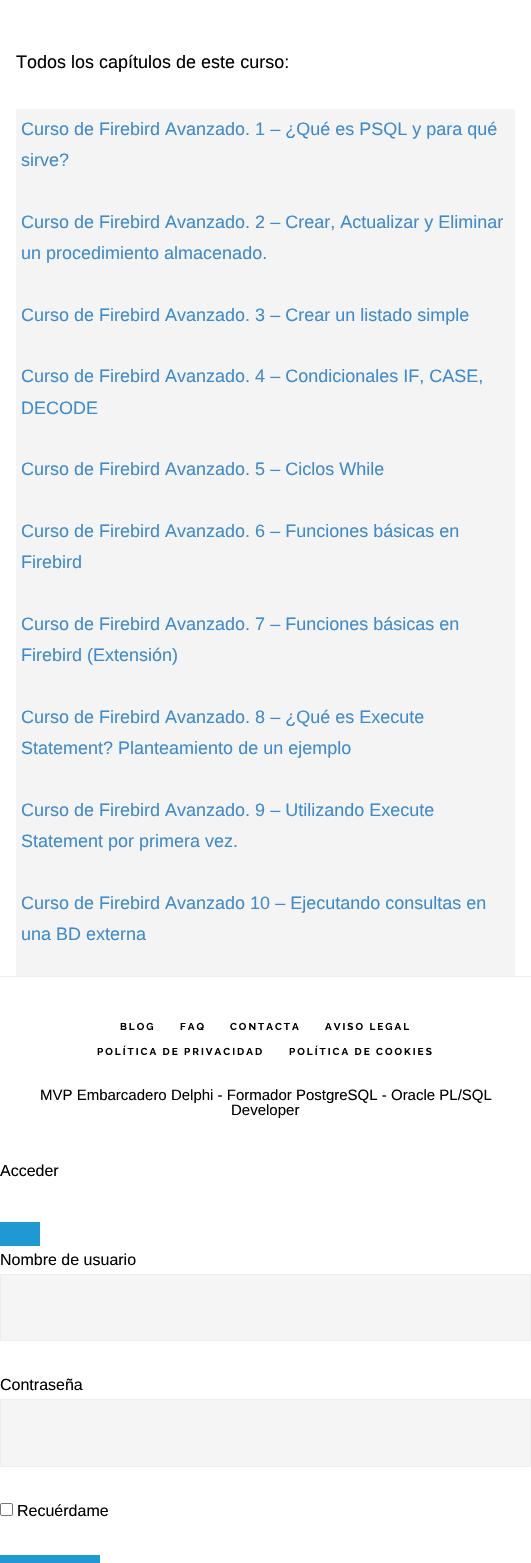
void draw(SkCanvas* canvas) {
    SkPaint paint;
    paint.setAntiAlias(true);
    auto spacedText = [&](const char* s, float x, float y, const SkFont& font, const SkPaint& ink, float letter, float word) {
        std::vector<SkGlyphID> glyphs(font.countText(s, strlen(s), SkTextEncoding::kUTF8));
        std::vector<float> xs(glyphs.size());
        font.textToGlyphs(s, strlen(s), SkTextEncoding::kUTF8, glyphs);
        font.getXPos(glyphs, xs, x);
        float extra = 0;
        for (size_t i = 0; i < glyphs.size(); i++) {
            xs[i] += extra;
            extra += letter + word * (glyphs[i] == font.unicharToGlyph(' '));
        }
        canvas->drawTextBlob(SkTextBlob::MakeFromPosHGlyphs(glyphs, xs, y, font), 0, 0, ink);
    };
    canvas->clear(0xFFFFFFFF);
    SkFont font1(fontMgr->matchFamilyStyle("Liberation Sans", SkFontStyle::Normal()), 18);
    font1.setSubpixel(true);
    paint.setColor(0xFF000000);
    canvas->drawString("Todos los capítulos de este curso:", 16, 68, font1, paint);
    paint.setColor(0xFFF4F4F4);
    canvas->drawRect(SkRect::MakeXYWH(16, 109, 499, 867), paint);
    paint.setColor(0xFF428BCA);
    canvas->drawString("Curso de Firebird Avanzado. 1 – ¿Qué es PSQL y para qué", 21, 135, font1, paint);
    canvas->drawString("sirve?", 21, 166, font1, paint);
    canvas->drawString("Curso de Firebird Avanzado. 2 – Crear, Actualizar y Eliminar", 21, 228, font1, paint);
    canvas->drawString("un procedimiento almacenado.", 21, 259, font1, paint);
    canvas->drawString("Curso de Firebird Avanzado. 3 – Crear un listado simple", 21, 321, font1, paint);
    canvas->drawString("Curso de Firebird Avanzado. 4 – Condicionales IF, CASE,", 21, 382, font1, paint);
    canvas->drawString("DECODE", 21, 414, font1, paint);
    canvas->drawString("Curso de Firebird Avanzado. 5 – Ciclos While", 21, 475, font1, paint);
    canvas->drawString("Curso de Firebird Avanzado. 6 – Funciones básicas en", 21, 537, font1, paint);
    canvas->drawString("Firebird", 21, 568, font1, paint);
    canvas->drawString("Curso de Firebird Avanzado. 7 – Funciones básicas en", 21, 630, font1, paint);
    canvas->drawString("Firebird (Extensión)", 21, 661, font1, paint);
    canvas->drawString("Curso de Firebird Avanzado. 8 – ¿Qué es Execute", 21, 723, font1, paint);
    canvas->drawString("Statement? Planteamiento de un ejemplo", 21, 754, font1, paint);
    canvas->drawString("Curso de Firebird Avanzado. 9 – Utilizando Execute", 21, 816, font1, paint);
    canvas->drawString("Statement por primera vez.", 21, 847, font1, paint);
    canvas->drawString("Curso de Firebird Avanzado 10 – Ejecutando consultas en", 21, 909, font1, paint);
    canvas->drawString("una BD externa", 21, 940, font1, paint);
    paint.setColor(0xFFEEEEEE);
    canvas->drawRect(SkRect::MakeXYWH(0, 976, 531, 1), paint);
    SkFont font2(fontMgr->matchFamilyStyle("Raleway", SkFontStyle(100, SkFontStyle::kNormal_Width, SkFontStyle::kUpright_Slant)), 10);
    font2.setSubpixel(true);
    paint.setColor(0xFF000000);
    spacedText("BLOG", 120, 1030, font2, paint, 2, 0);
    spacedText("FAQ", 180, 1030, font2, paint, 2, 0);
    spacedText("CONTACTA", 230, 1030, font2, paint, 2, 0);
    spacedText("AVISO LEGAL", 325, 1030, font2, paint, 2, 0);
    spacedText("POLÍTICA DE PRIVACIDAD", 97, 1055, font2, paint, 2, 0);
    spacedText("POLÍTICA DE COOKIES", 289, 1055, font2, paint, 2, 0);
    SkFont font3(fontMgr->matchFamilyStyle("Liberation Sans", SkFontStyle::Normal()), 15);
    font3.setSubpixel(true);
    canvas->drawString("MVP Embarcadero Delphi - Formador PostgreSQL - Oracle PL/SQL", 40, 1100, font3, paint);
    canvas->drawString("Developer", 231, 1115, font3, paint);
    SkFont font4(fontMgr->matchFamilyStyle("Liberation Sans", SkFontStyle::Normal()), 16);
    font4.setSubpixel(true);
    canvas->drawString("Acceder", 0, 1176, font4, paint);
    paint.setColor(0xFF2098D1);
    canvas->drawRect(SkRect::MakeXYWH(0, 1222, 40, 24), paint);
    paint.setColor(0xFF000000);
    canvas->drawString("Nombre de usuario", 0, 1265, font4, paint);
    paint.setColor(0xFFF5F5F5);
    canvas->drawRect(SkRect::MakeXYWH(0.5f, 1274.5f, 530, 66), paint);
    paint.setStyle(SkPaint::kStroke_Style);
    paint.setStrokeWidth(1);
    paint.setColor(0xFFEEEEEE);
    canvas->drawRect(SkRect::MakeXYWH(0.5f, 1274.5f, 530, 66), paint);
    paint.setStyle(SkPaint::kFill_Style);
    paint.setColor(0xFF000000);
    canvas->drawString("Contraseña", 0, 1390, font4, paint);
    paint.setColor(0xFFF5F5F5);
    canvas->drawRect(SkRect::MakeXYWH(0.5f, 1399.5f, 530, 67), paint);
    paint.setStyle(SkPaint::kStroke_Style);
    paint.setColor(0xFFEEEEEE);
    canvas->drawRect(SkRect::MakeXYWH(0.5f, 1399.5f, 530, 67), paint);
    paint.setColor(0xFF767676);
    canvas->drawRoundRect(SkRect::MakeXYWH(0.5f, 1503.5f, 12, 12), 1.5f, 1.5f, paint);
    paint.setStyle(SkPaint::kFill_Style);
    paint.setColor(0xFF000000);
    canvas->drawString("Recuérdame", 17, 1516, font4, paint);
    paint.setColor(0xFF2098D1);
    canvas->drawRect(SkRect::MakeXYWH(0, 1555, 100, 8), paint);
}
